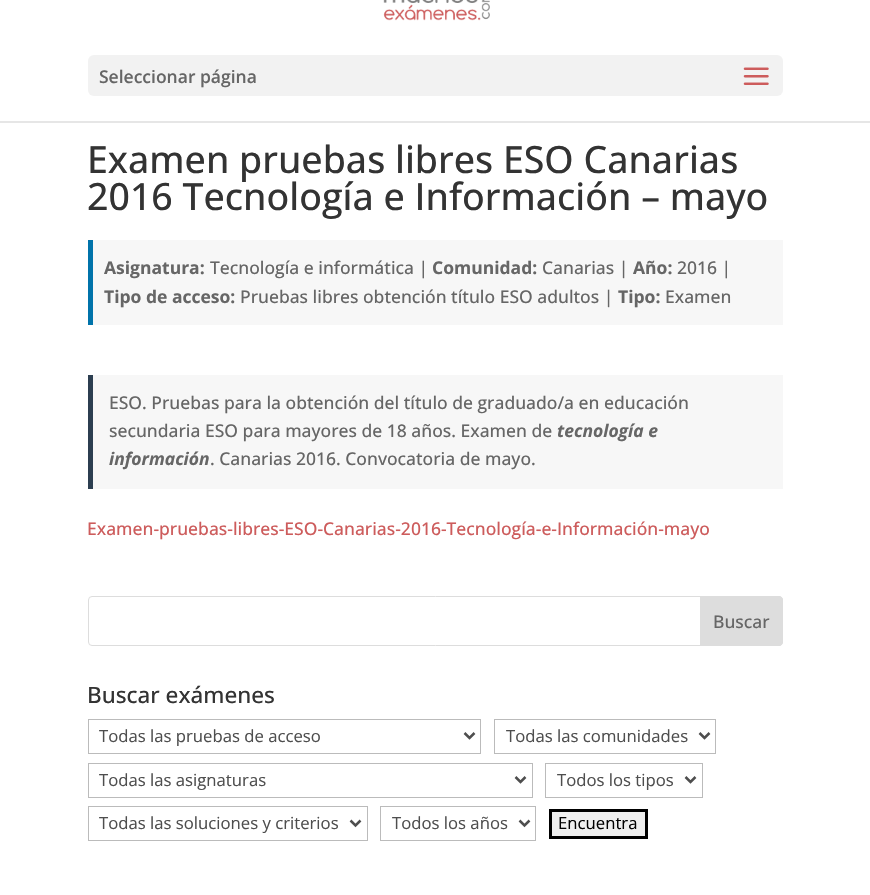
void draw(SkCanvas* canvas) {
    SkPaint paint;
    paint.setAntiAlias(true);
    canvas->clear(0xFFFFFFFF);
    paint.setColor(0xFFE6E6E6);
    canvas->drawRect(SkRect::MakeXYWH(0, 121, 870, 2), paint);
    canvas->drawImageRect(SkImages::DeferredFromEncodedData(SkData::MakeFromFileName("img1.png")), SkRect::MakeXYWH(383, 0, 107, 21), SkSamplingOptions());
    paint.setColor(0xFFF2F2F2);
    canvas->drawRoundRect(SkRect::MakeXYWH(88, 55, 695, 41), 6, 6, paint);
    SkFont font1(fontMgr->matchFamilyStyle("Open Sans", SkFontStyle(600, SkFontStyle::kNormal_Width, SkFontStyle::kUpright_Slant)), 17.5f);
    font1.setSubpixel(true);
    paint.setColor(0xFF666666);
    canvas->drawString("Seleccionar página", 99, 83, font1, paint);
    canvas->drawImageRect(SkImages::DeferredFromEncodedData(SkData::MakeFromFileName("img2.png")), SkRect::MakeXYWH(743, 67, 26, 18), SkSamplingOptions());
    SkFont font2(fontMgr->matchFamilyStyle("Open Sans", SkFontStyle(500, SkFontStyle::kNormal_Width, SkFontStyle::kUpright_Slant)), 37.5f);
    font2.setSubpixel(true);
    paint.setColor(0xFF333333);
    canvas->drawString("Examen pruebas libres ESO Canarias", 87, 173, font2, paint);
    canvas->drawString("2016 Tecnología e Información – mayo", 87, 210, font2, paint);
    paint.setColor(0xFFF7F7F7);
    canvas->drawRect(SkRect::MakeXYWH(93, 240, 690, 85), paint);
    paint.setColor(0xFF0073AA);
    canvas->drawRect(SkRect::MakeXYWH(88, 240, 5, 85), paint);
    SkFont font3(fontMgr->matchFamilyStyle("Open Sans", SkFontStyle::Bold()), 17.5f);
    font3.setSubpixel(true);
    paint.setColor(0xFF666666);
    canvas->drawString("Asignatura:", 104, 274, font3, paint);
    SkFont font4(fontMgr->matchFamilyStyle("Open Sans", SkFontStyle(500, SkFontStyle::kNormal_Width, SkFontStyle::kUpright_Slant)), 17.5f);
    font4.setSubpixel(true);
    canvas->drawString("Tecnología e informática |", 210, 274, font4, paint);
    canvas->drawString("Comunidad:", 432, 274, font3, paint);
    canvas->drawString("Canarias |", 542, 274, font4, paint);
    canvas->drawString("Año:", 633, 274, font3, paint);
    canvas->drawString("2016 |", 677, 274, font4, paint);
    canvas->drawString("Tipo de acceso:", 104, 303, font3, paint);
    canvas->drawString("Pruebas libres obtención título ESO adultos |", 240, 303, font4, paint);
    canvas->drawString("Tipo:", 618, 303, font3, paint);
    canvas->drawString("Examen", 665, 303, font4, paint);
    paint.setColor(0xFFF7F7F7);
    canvas->drawRect(SkRect::MakeXYWH(93, 375, 690, 114), paint);
    paint.setColor(0xFF2C3E50);
    canvas->drawRect(SkRect::MakeXYWH(88, 375, 5, 114), paint);
    paint.setColor(0xFF666666);
    canvas->drawString("ESO. Pruebas para la obtención del título de graduado/a en educación", 109, 409, font4, paint);
    canvas->drawString("secundaria ESO para mayores de 18 años. Examen de", 109, 437, font4, paint);
    SkFont font5(fontMgr->matchFamilyStyle("Open Sans", SkFontStyle::BoldItalic()), 17.5f);
    font5.setSubpixel(true);
    canvas->drawString("tecnología e", 557, 437, font5, paint);
    canvas->drawString("información", 109, 465, font5, paint);
    canvas->drawString(". Canarias 2016. Convocatoria de mayo.", 210, 465, font4, paint);
    paint.setColor(0xFFCD5C5C);
    canvas->drawString("Examen-pruebas-libres-ESO-Canarias-2016-Tecnología-e-Información-mayo", 87, 535, font4, paint);
    paint.setStyle(SkPaint::kStroke_Style);
    paint.setStrokeWidth(1);
    paint.setColor(0xFFDDDDDD);
    canvas->drawRoundRect(SkRect::MakeXYWH(88.5f, 596.5f, 694, 49), 3.5f, 3.5f, paint);
    paint.setStyle(SkPaint::kFill_Style);
    canvas->drawPath(SkPathBuilder().moveTo(700.5f, 596.5f).lineTo(779, 596.5f).cubicTo(781, 596.5f, 782.5f, 598, 782.5f, 600).lineTo(782.5f, 642).cubicTo(782.5f, 644, 781, 645.5f, 779, 645.5f).lineTo(700.5f, 645.5f).close().detach(), paint);
    paint.setStyle(SkPaint::kStroke_Style);
    canvas->drawPath(SkPathBuilder().moveTo(700.5f, 596.5f).lineTo(779, 596.5f).cubicTo(781, 596.5f, 782.5f, 598, 782.5f, 600).lineTo(782.5f, 642).cubicTo(782.5f, 644, 781, 645.5f, 779, 645.5f).lineTo(700.5f, 645.5f).close().detach(), paint);
    paint.setStyle(SkPaint::kFill_Style);
    paint.setColor(0xFF666666);
    canvas->drawString("Buscar", 713, 628, font4, paint);
    SkFont font6(fontMgr->matchFamilyStyle("Open Sans", SkFontStyle(500, SkFontStyle::kNormal_Width, SkFontStyle::kUpright_Slant)), 22.5f);
    font6.setSubpixel(true);
    paint.setColor(0xFF333333);
    canvas->drawString("Buscar exámenes", 87, 703, font6, paint);
    paint.setStyle(SkPaint::kStroke_Style);
    paint.setColor(0xFFBBBBBB);
    canvas->drawRect(SkRect::MakeXYWH(88.5f, 719.5f, 392, 34), paint);
    paint.setStrokeWidth(2.5f);
    paint.setColor(0xFF4E4E4E);
    canvas->drawPath(SkPathBuilder().moveTo(464.5f, 733).lineTo(469.5f, 738).lineTo(474.5f, 733).detach(), paint);
    SkFont font7(fontMgr->matchFamilyStyle("Open Sans", SkFontStyle::Normal()), 16.7f);
    font7.setSubpixel(true);
    paint.setStyle(SkPaint::kFill_Style);
    canvas->drawString("Todas las pruebas de acceso", 99, 742, font7, paint);
    paint.setStyle(SkPaint::kStroke_Style);
    paint.setStrokeWidth(1);
    paint.setColor(0xFFBBBBBB);
    canvas->drawRect(SkRect::MakeXYWH(494.5f, 719.5f, 221, 34), paint);
    paint.setStrokeWidth(2.5f);
    paint.setColor(0xFF4E4E4E);
    canvas->drawPath(SkPathBuilder().moveTo(699.5f, 733).lineTo(704.5f, 738).lineTo(709.5f, 733).detach(), paint);
    paint.setStyle(SkPaint::kFill_Style);
    canvas->drawString("Todas las comunidades", 506, 742, font7, paint);
    paint.setStyle(SkPaint::kStroke_Style);
    paint.setStrokeWidth(1);
    paint.setColor(0xFFBBBBBB);
    canvas->drawRect(SkRect::MakeXYWH(88.5f, 763.5f, 444, 34), paint);
    paint.setStrokeWidth(2.5f);
    paint.setColor(0xFF4E4E4E);
    canvas->drawPath(SkPathBuilder().moveTo(515.5f, 777).lineTo(520.5f, 782).lineTo(525.5f, 777).detach(), paint);
    paint.setStyle(SkPaint::kFill_Style);
    canvas->drawString("Todas las asignaturas", 99, 786, font7, paint);
    paint.setStyle(SkPaint::kStroke_Style);
    paint.setStrokeWidth(1);
    paint.setColor(0xFFBBBBBB);
    canvas->drawRect(SkRect::MakeXYWH(545.5f, 763.5f, 157, 34), paint);
    paint.setStrokeWidth(2.5f);
    paint.setColor(0xFF4E4E4E);
    canvas->drawPath(SkPathBuilder().moveTo(685.5f, 777).lineTo(690.5f, 782).lineTo(695.5f, 777).detach(), paint);
    paint.setStyle(SkPaint::kFill_Style);
    canvas->drawString("Todos los tipos", 557, 786, font7, paint);
    paint.setStyle(SkPaint::kStroke_Style);
    paint.setStrokeWidth(1);
    paint.setColor(0xFFBBBBBB);
    canvas->drawRect(SkRect::MakeXYWH(88.5f, 806.5f, 279, 34), paint);
    paint.setStrokeWidth(2.5f);
    paint.setColor(0xFF4E4E4E);
    canvas->drawPath(SkPathBuilder().moveTo(350.5f, 820.5f).lineTo(355.5f, 825.5f).lineTo(360.5f, 820.5f).detach(), paint);
    paint.setStyle(SkPaint::kFill_Style);
    canvas->drawString("Todas las soluciones y criterios", 99, 829, font7, paint);
    paint.setStyle(SkPaint::kStroke_Style);
    paint.setStrokeWidth(1);
    paint.setColor(0xFFBBBBBB);
    canvas->drawRect(SkRect::MakeXYWH(380.5f, 806.5f, 155, 34), paint);
    paint.setStrokeWidth(2.5f);
    paint.setColor(0xFF4E4E4E);
    canvas->drawPath(SkPathBuilder().moveTo(519.5f, 820.5f).lineTo(524.5f, 825.5f).lineTo(529.5f, 820.5f).detach(), paint);
    paint.setStyle(SkPaint::kFill_Style);
    canvas->drawString("Todos los años", 392, 829, font7, paint);
    paint.setColor(0xFFEFEFEF);
    canvas->drawRect(SkRect::MakeXYWH(550.5f, 810.5f, 96, 27), paint);
    paint.setStyle(SkPaint::kStroke_Style);
    paint.setStrokeWidth(3);
    paint.setColor(0xFF000000);
    canvas->drawRect(SkRect::MakeXYWH(550.5f, 810.5f, 96, 27), paint);
    paint.setStyle(SkPaint::kFill_Style);
    canvas->drawString("Encuentra", 558, 829, font7, paint);
}
